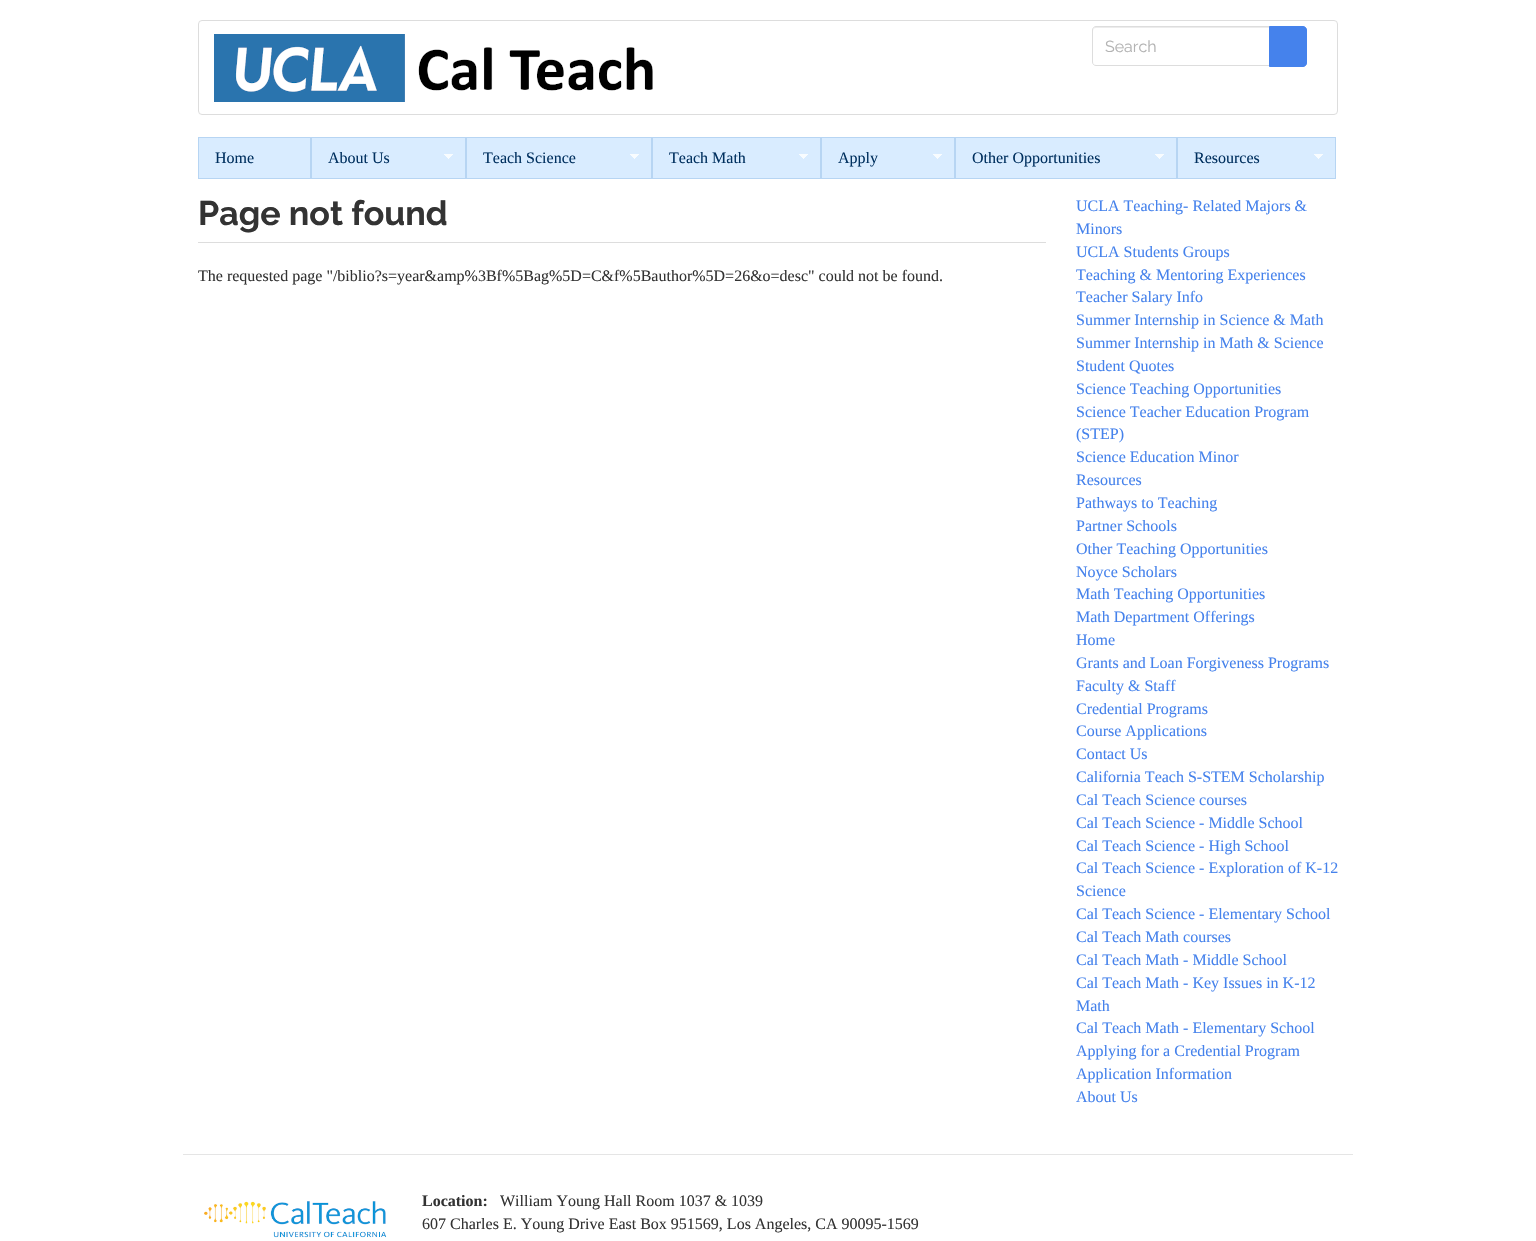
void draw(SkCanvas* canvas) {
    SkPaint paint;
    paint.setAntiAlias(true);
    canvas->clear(0xFFFFFFFF);
    paint.setStyle(SkPaint::kStroke_Style);
    paint.setStrokeWidth(1);
    paint.setColor(0xFFDDDDDD);
    canvas->drawRoundRect(SkRect::MakeXYWH(198.5f, 20.5f, 1139, 94), 3.5f, 3.5f, paint);
    canvas->drawImageRect(SkImages::DeferredFromEncodedData(SkData::MakeFromFileName("img1.png")), SkRect::MakeXYWH(214, 34, 439, 68), SkSamplingOptions());
    paint.setStyle(SkPaint::kFill_Style);
    paint.setColor(0xFFECECEC);
    canvas->drawPath(SkPathBuilder().moveTo(1096, 28).lineTo(1269, 28).lineTo(1269, 27).lineTo(1095, 27).cubicTo(1093, 28, 1093, 29, 1093, 31).cubicTo(1093, 29, 1094, 28, 1096, 28).close().detach(), paint);
    paint.setStyle(SkPaint::kStroke_Style);
    paint.setColor(0xFFDDDDDD);
    canvas->drawPath(SkPathBuilder().moveTo(1096, 26.5f).lineTo(1269.5f, 26.5f).lineTo(1269.5f, 65.5f).lineTo(1096, 65.5f).cubicTo(1094, 65.5f, 1092.5f, 64, 1092.5f, 62).lineTo(1092.5f, 30).cubicTo(1092.5f, 28, 1094, 26.5f, 1096, 26.5f).close().detach(), paint);
    SkFont font1(fontMgr->matchFamilyStyle("Raleway", SkFontStyle::Normal()), 16);
    font1.setSubpixel(true);
    paint.setStyle(SkPaint::kFill_Style);
    paint.setColor(0xFFB3B3B3);
    canvas->drawString("Search", 1105, 52, font1, paint);
    paint.setColor(0xFF4582EC);
    canvas->drawPath(SkPathBuilder().moveTo(1269.5f, 26.5f).lineTo(1303, 26.5f).cubicTo(1305, 26.5f, 1306.5f, 28, 1306.5f, 30).lineTo(1306.5f, 63).cubicTo(1306.5f, 65, 1305, 66.5f, 1303, 66.5f).lineTo(1269.5f, 66.5f).close().detach(), paint);
    paint.setStyle(SkPaint::kStroke_Style);
    canvas->drawPath(SkPathBuilder().moveTo(1269.5f, 26.5f).lineTo(1303, 26.5f).cubicTo(1305, 26.5f, 1306.5f, 28, 1306.5f, 30).lineTo(1306.5f, 63).cubicTo(1306.5f, 65, 1305, 66.5f, 1303, 66.5f).lineTo(1269.5f, 66.5f).close().detach(), paint);
    paint.setStyle(SkPaint::kFill_Style);
    paint.setColor(0xFFD9ECFF);
    canvas->drawRect(SkRect::MakeXYWH(198.5f, 137.5f, 112, 41), paint);
    paint.setStyle(SkPaint::kStroke_Style);
    paint.setColor(0xFFB7D5F3);
    canvas->drawRect(SkRect::MakeXYWH(198.5f, 137.5f, 112, 41), paint);
    SkFont font2(fontMgr->matchFamilyStyle("Liberation Serif", SkFontStyle::Normal()), 16);
    font2.setSubpixel(true);
    paint.setStyle(SkPaint::kFill_Style);
    paint.setColor(0xFF00305F);
    canvas->drawString("Home", 215, 163, font2, paint);
    paint.setColor(0xFFD9ECFF);
    canvas->drawRect(SkRect::MakeXYWH(311.5f, 137.5f, 154, 41), paint);
    paint.setStyle(SkPaint::kStroke_Style);
    paint.setColor(0xFFB7D5F3);
    canvas->drawRect(SkRect::MakeXYWH(311.5f, 137.5f, 154, 41), paint);
    paint.setStyle(SkPaint::kFill_Style);
    paint.setColor(0xFF00305F);
    canvas->drawString("About Us", 328, 163, font2, paint);
    canvas->drawImageRect(SkImages::DeferredFromEncodedData(SkData::MakeFromFileName("img2.png")), SkRect::MakeXYWH(444, 154, 9, 5), SkSamplingOptions());
    paint.setColor(0xFFD9ECFF);
    canvas->drawRect(SkRect::MakeXYWH(466.5f, 137.5f, 185, 41), paint);
    paint.setStyle(SkPaint::kStroke_Style);
    paint.setColor(0xFFB7D5F3);
    canvas->drawRect(SkRect::MakeXYWH(466.5f, 137.5f, 185, 41), paint);
    paint.setStyle(SkPaint::kFill_Style);
    paint.setColor(0xFF00305F);
    canvas->drawString("Teach Science", 483, 163, font2, paint);
    canvas->drawImageRect(SkImages::DeferredFromEncodedData(SkData::MakeFromFileName("img2.png")), SkRect::MakeXYWH(630, 154, 9, 5), SkSamplingOptions());
    paint.setColor(0xFFD9ECFF);
    canvas->drawRect(SkRect::MakeXYWH(652.5f, 137.5f, 168, 41), paint);
    paint.setStyle(SkPaint::kStroke_Style);
    paint.setColor(0xFFB7D5F3);
    canvas->drawRect(SkRect::MakeXYWH(652.5f, 137.5f, 168, 41), paint);
    paint.setStyle(SkPaint::kFill_Style);
    paint.setColor(0xFF00305F);
    canvas->drawString("Teach Math", 669, 163, font2, paint);
    canvas->drawImageRect(SkImages::DeferredFromEncodedData(SkData::MakeFromFileName("img2.png")), SkRect::MakeXYWH(799, 154, 9, 5), SkSamplingOptions());
    paint.setColor(0xFFD9ECFF);
    canvas->drawRect(SkRect::MakeXYWH(821.5f, 137.5f, 133, 41), paint);
    paint.setStyle(SkPaint::kStroke_Style);
    paint.setColor(0xFFB7D5F3);
    canvas->drawRect(SkRect::MakeXYWH(821.5f, 137.5f, 133, 41), paint);
    paint.setStyle(SkPaint::kFill_Style);
    paint.setColor(0xFF00305F);
    canvas->drawString("Apply", 838, 163, font2, paint);
    canvas->drawImageRect(SkImages::DeferredFromEncodedData(SkData::MakeFromFileName("img2.png")), SkRect::MakeXYWH(933, 154, 9, 5), SkSamplingOptions());
    paint.setColor(0xFFD9ECFF);
    canvas->drawRect(SkRect::MakeXYWH(955.5f, 137.5f, 221, 41), paint);
    paint.setStyle(SkPaint::kStroke_Style);
    paint.setColor(0xFFB7D5F3);
    canvas->drawRect(SkRect::MakeXYWH(955.5f, 137.5f, 221, 41), paint);
    paint.setStyle(SkPaint::kFill_Style);
    paint.setColor(0xFF00305F);
    canvas->drawString("Other Opportunities", 972, 163, font2, paint);
    canvas->drawImageRect(SkImages::DeferredFromEncodedData(SkData::MakeFromFileName("img2.png")), SkRect::MakeXYWH(1155, 154, 9, 5), SkSamplingOptions());
    paint.setColor(0xFFD9ECFF);
    canvas->drawRect(SkRect::MakeXYWH(1177.5f, 137.5f, 158, 41), paint);
    paint.setStyle(SkPaint::kStroke_Style);
    paint.setColor(0xFFB7D5F3);
    canvas->drawRect(SkRect::MakeXYWH(1177.5f, 137.5f, 158, 41), paint);
    paint.setStyle(SkPaint::kFill_Style);
    paint.setColor(0xFF00305F);
    canvas->drawString("Resources", 1194, 163, font2, paint);
    canvas->drawImageRect(SkImages::DeferredFromEncodedData(SkData::MakeFromFileName("img2.png")), SkRect::MakeXYWH(1314, 154, 9, 5), SkSamplingOptions());
    paint.setColor(0xFFDDDDDD);
    canvas->drawRect(SkRect::MakeXYWH(198, 242, 848, 1), paint);
    SkFont font3(fontMgr->matchFamilyStyle("Raleway", SkFontStyle::Bold()), 34);
    font3.setSubpixel(true);
    paint.setColor(0xFF333333);
    canvas->drawString("Page not found", 198, 225, font3, paint);
    canvas->drawString("The requested page \"/biblio?s=year&amp%3Bf%5Bag%5D=C&f%5Bauthor%5D=26&o=desc\" could not be found.", 198, 281, font2, paint);
    paint.setColor(0xFF4582EC);
    canvas->drawString("UCLA Teaching- Related Majors &", 1076, 211, font2, paint);
    canvas->drawString("Minors", 1076, 234, font2, paint);
    canvas->drawString("UCLA Students Groups", 1076, 257, font2, paint);
    canvas->drawString("Teaching & Mentoring Experiences", 1076, 280, font2, paint);
    canvas->drawString("Teacher Salary Info", 1076, 302, font2, paint);
    canvas->drawString("Summer Internship in Science & Math", 1076, 325, font2, paint);
    canvas->drawString("Summer Internship in Math & Science", 1076, 348, font2, paint);
    canvas->drawString("Student Quotes", 1076, 371, font2, paint);
    canvas->drawString("Science Teaching Opportunities", 1076, 394, font2, paint);
    canvas->drawString("Science Teacher Education Program", 1076, 417, font2, paint);
    canvas->drawString("(STEP)", 1076, 439, font2, paint);
    canvas->drawString("Science Education Minor", 1076, 462, font2, paint);
    canvas->drawString("Resources", 1076, 485, font2, paint);
    canvas->drawString("Pathways to Teaching", 1076, 508, font2, paint);
    canvas->drawString("Partner Schools", 1076, 531, font2, paint);
    canvas->drawString("Other Teaching Opportunities", 1076, 554, font2, paint);
    canvas->drawString("Noyce Scholars", 1076, 577, font2, paint);
    canvas->drawString("Math Teaching Opportunities", 1076, 599, font2, paint);
    canvas->drawString("Math Department Offerings", 1076, 622, font2, paint);
    canvas->drawString("Home", 1076, 645, font2, paint);
    canvas->drawString("Grants and Loan Forgiveness Programs", 1076, 668, font2, paint);
    canvas->drawString("Faculty & Staff", 1076, 691, font2, paint);
    canvas->drawString("Credential Programs", 1076, 714, font2, paint);
    canvas->drawString("Course Applications", 1076, 736, font2, paint);
    canvas->drawString("Contact Us", 1076, 759, font2, paint);
    canvas->drawString("California Teach S-STEM Scholarship", 1076, 782, font2, paint);
    canvas->drawString("Cal Teach Science courses", 1076, 805, font2, paint);
    canvas->drawString("Cal Teach Science - Middle School", 1076, 828, font2, paint);
    canvas->drawString("Cal Teach Science - High School", 1076, 851, font2, paint);
    canvas->drawString("Cal Teach Science - Exploration of K-12", 1076, 873, font2, paint);
    canvas->drawString("Science", 1076, 896, font2, paint);
    canvas->drawString("Cal Teach Science - Elementary School", 1076, 919, font2, paint);
    canvas->drawString("Cal Teach Math courses", 1076, 942, font2, paint);
    canvas->drawString("Cal Teach Math - Middle School", 1076, 965, font2, paint);
    canvas->drawString("Cal Teach Math - Key Issues in K-12", 1076, 988, font2, paint);
    canvas->drawString("Math", 1076, 1011, font2, paint);
    canvas->drawString("Cal Teach Math - Elementary School", 1076, 1033, font2, paint);
    canvas->drawString("Applying for a Credential Program", 1076, 1056, font2, paint);
    canvas->drawString("Application Information", 1076, 1079, font2, paint);
    canvas->drawString("About Us", 1076, 1102, font2, paint);
    paint.setColor(0xFFE5E5E5);
    canvas->drawRect(SkRect::MakeXYWH(183, 1154, 1170, 1), paint);
    canvas->drawImageRect(SkImages::DeferredFromEncodedData(SkData::MakeFromFileName("img3.png")), SkRect::MakeXYWH(204, 1201, 183, 37), SkSamplingOptions());
    SkFont font4(fontMgr->matchFamilyStyle("Liberation Serif", SkFontStyle::Bold()), 16);
    font4.setSubpixel(true);
    paint.setColor(0xFF333333);
    canvas->drawString("Location:", 422, 1206, font4, paint);
    canvas->drawString("William Young Hall Room 1037 & 1039", 500, 1206, font2, paint);
    canvas->drawString("607 Charles E. Young Drive East Box 951569, Los Angeles, CA 90095-1569", 422, 1229, font2, paint);
}
